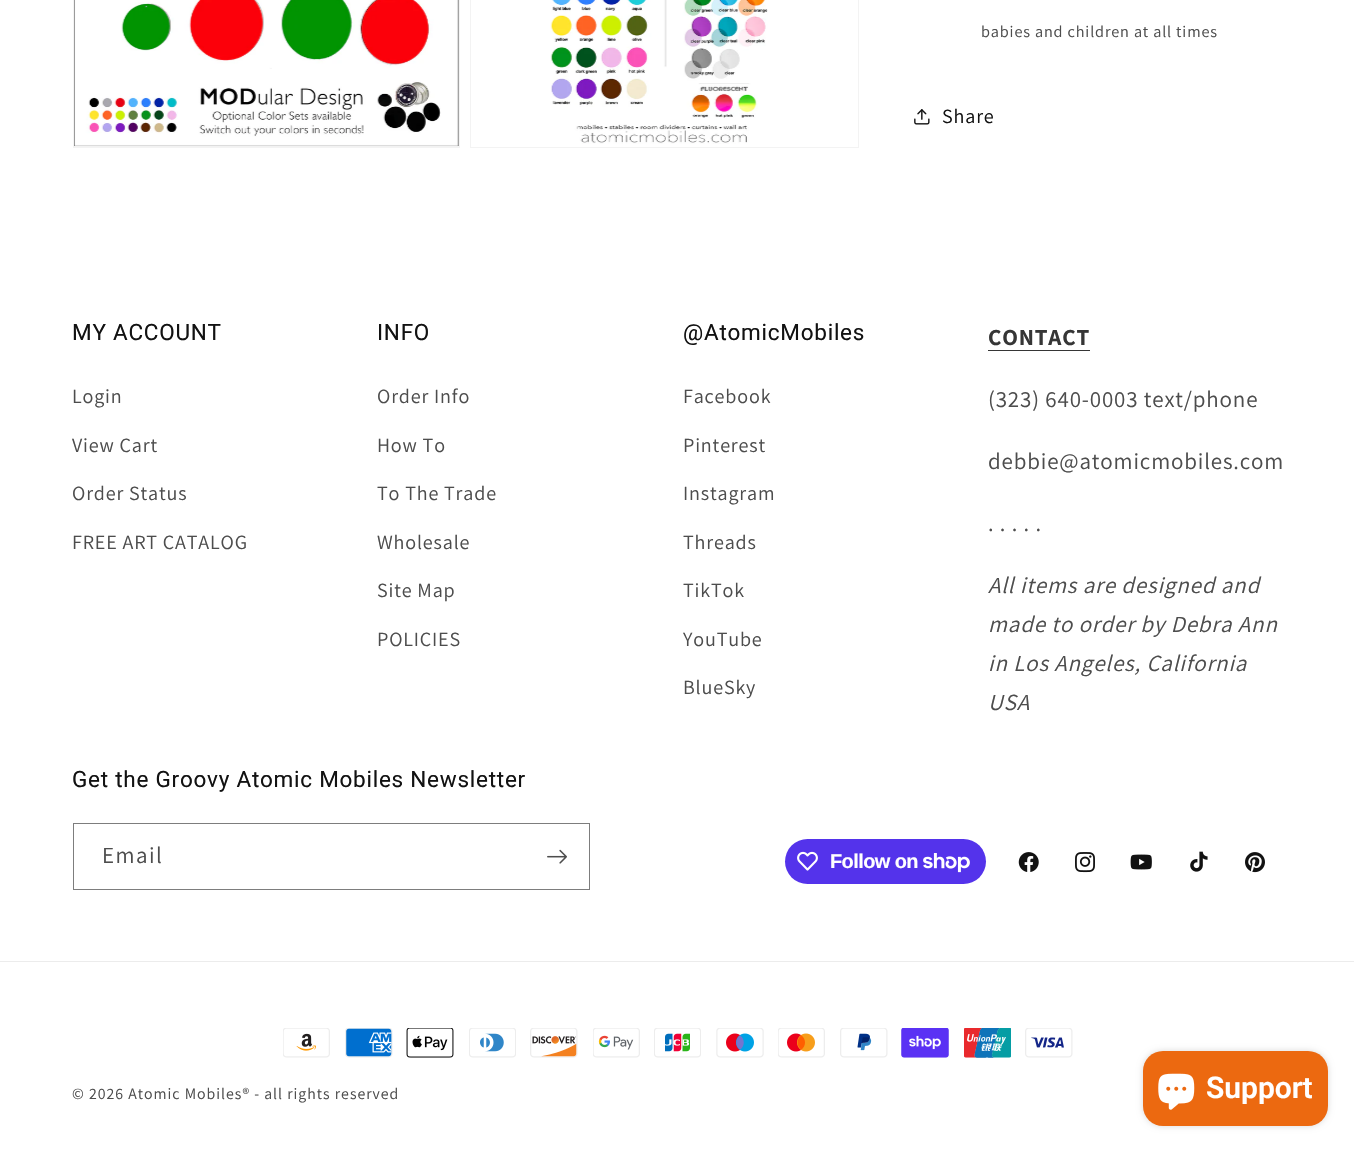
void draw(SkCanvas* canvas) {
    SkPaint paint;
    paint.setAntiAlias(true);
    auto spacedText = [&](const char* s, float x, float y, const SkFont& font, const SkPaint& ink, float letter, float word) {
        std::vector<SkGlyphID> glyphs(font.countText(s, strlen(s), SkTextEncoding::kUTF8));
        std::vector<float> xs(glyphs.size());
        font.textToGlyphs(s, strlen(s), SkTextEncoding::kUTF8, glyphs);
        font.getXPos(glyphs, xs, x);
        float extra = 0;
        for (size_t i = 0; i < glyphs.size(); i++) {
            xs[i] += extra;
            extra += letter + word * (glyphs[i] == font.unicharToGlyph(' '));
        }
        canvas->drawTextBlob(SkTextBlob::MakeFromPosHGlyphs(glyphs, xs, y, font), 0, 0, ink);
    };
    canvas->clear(0xFFFFFFFF);
    paint.setStyle(SkPaint::kStroke_Style);
    paint.setStrokeWidth(1);
    paint.setColor(0xFFF3F3F3);
    canvas->drawRect(SkRect::MakeXYWH(73.5f, -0.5f, 386, 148), paint);
    canvas->drawImageRect(SkImages::DeferredFromEncodedData(SkData::MakeFromFileName("img1.png")), SkRect::MakeXYWH(74, 0, 385, 147), SkSamplingOptions());
    canvas->drawRect(SkRect::MakeXYWH(470.5f, -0.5f, 388, 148), paint);
    canvas->drawImageRect(SkImages::DeferredFromEncodedData(SkData::MakeFromFileName("img2.png")), SkRect::MakeXYWH(550, 0, 218, 144), SkSamplingOptions());
    SkFont font1(fontMgr->matchFamilyStyle("Assistant", SkFontStyle::Normal()), 16.25f);
    font1.setSubpixel(true);
    paint.setStyle(SkPaint::kFill_Style);
    paint.setColor(0xFF4D4D4D);
    spacedText("babies and children at all times", 981, 37, font1, paint, 0.85f, 0);
    canvas->drawImageRect(SkImages::DeferredFromEncodedData(SkData::MakeFromFileName("img3.png")), SkRect::MakeXYWH(914, 109, 16, 16), SkSamplingOptions());
    SkFont font2(fontMgr->matchFamilyStyle("Assistant", SkFontStyle::Normal()), 20.1f);
    font2.setSubpixel(true);
    paint.setColor(0xFF121212);
    spacedText("Share", 942, 123, font2, paint, 0.85f, 0);
    SkFont font3(fontMgr->matchFamilyStyle("Roboto", SkFontStyle::Normal()), 22.5f);
    font3.setSubpixel(true);
    spacedText("MY ACCOUNT", 72, 340, font3, paint, 0.75f, 0);
    paint.setColor(0xFF4D4D4D);
    spacedText("Login", 72, 403, font2, paint, 0.85f, 0);
    spacedText("View Cart", 72, 452, font2, paint, 0.85f, 0);
    spacedText("Order Status", 72, 500, font2, paint, 0.85f, 0);
    spacedText("FREE ART CATALOG", 72, 549, font2, paint, 0.85f, 0);
    paint.setColor(0xFF121212);
    spacedText("INFO", 377, 340, font3, paint, 0.75f, 0);
    paint.setColor(0xFF4D4D4D);
    spacedText("Order Info", 377, 403, font2, paint, 0.85f, 0);
    spacedText("How To", 377, 452, font2, paint, 0.85f, 0);
    spacedText("To The Trade", 377, 500, font2, paint, 0.85f, 0);
    spacedText("Wholesale", 377, 549, font2, paint, 0.85f, 0);
    spacedText("Site Map", 377, 597, font2, paint, 0.85f, 0);
    spacedText("POLICIES", 377, 646, font2, paint, 0.85f, 0);
    paint.setColor(0xFF121212);
    spacedText("@AtomicMobiles", 683, 340, font3, paint, 0.75f, 0);
    paint.setColor(0xFF4D4D4D);
    spacedText("Facebook", 683, 403, font2, paint, 0.85f, 0);
    spacedText("Pinterest", 683, 452, font2, paint, 0.85f, 0);
    spacedText("Instagram", 683, 500, font2, paint, 0.85f, 0);
    spacedText("Threads", 683, 549, font2, paint, 0.85f, 0);
    spacedText("TikTok", 683, 597, font2, paint, 0.85f, 0);
    spacedText("YouTube", 683, 646, font2, paint, 0.85f, 0);
    spacedText("BlueSky", 683, 694, font2, paint, 0.85f, 0);
    SkFont font4(fontMgr->matchFamilyStyle("Assistant", SkFontStyle::Bold()), 23);
    font4.setSubpixel(true);
    paint.setColor(0xFF363636);
    spacedText("CONTACT", 988, 345, font4, paint, 0.85f, 0);
    canvas->drawRect(SkRect::MakeXYWH(988, 350, 102, 1), paint);
    SkFont font5(fontMgr->matchFamilyStyle("Assistant", SkFontStyle::Normal()), 23);
    font5.setSubpixel(true);
    paint.setColor(0xFF4D4D4D);
    spacedText("(323) 640-0003 text/phone", 988, 407, font5, paint, 0.85f, 0);
    spacedText("debbie@atomicmobiles.com", 988, 469, font5, paint, 0.85f, 0);
    spacedText(". . . . .", 988, 531, font5, paint, 0.85f, 0);
    SkFont font6(fontMgr->matchFamilyStyle("Assistant", SkFontStyle::Italic()), 23);
    font6.setSubpixel(true);
    spacedText("All items are designed and", 988, 593, font6, paint, 0.85f, 0);
    spacedText("made to order by Debra Ann", 988, 632, font6, paint, 0.85f, 0);
    spacedText("in Los Angeles, California", 988, 671, font6, paint, 0.85f, 0);
    spacedText("USA", 988, 710, font6, paint, 0.85f, 0);
    paint.setColor(0xFF121212);
    spacedText("Get the Groovy Atomic Mobiles Newsletter", 72, 787, font3, paint, 0.75f, 0);
    paint.setStyle(SkPaint::kStroke_Style);
    paint.setColor(0xFF7D7D7D);
    canvas->drawRect(SkRect::MakeXYWH(73.5f, 823.5f, 516, 66), paint);
    paint.setStyle(SkPaint::kFill_Style);
    paint.setColor(0xFF4D4D4D);
    spacedText("Email", 102, 863, font5, paint, 1.5f, 0);
    canvas->drawImageRect(SkImages::DeferredFromEncodedData(SkData::MakeFromFileName("img4.png")), SkRect::MakeXYWH(547, 849, 20, 15), SkSamplingOptions());
    paint.setColor(0xFF5433EB);
    canvas->drawRoundRect(SkRect::MakeXYWH(785, 839, 201, 45), 22.5f, 22.5f, paint);
    canvas->drawImageRect(SkImages::DeferredFromEncodedData(SkData::MakeFromFileName("img5.png")), SkRect::MakeXYWH(797, 851, 21, 20), SkSamplingOptions());
    SkFont font7(fontMgr->matchFamilyStyle("Liberation Sans", SkFontStyle::Bold()), 20);
    font7.setSubpixel(true);
    paint.setColor(0xFFFFFFFF);
    spacedText("Follow on", 830, 868, font7, paint, -0.6f, 0);
    canvas->drawImageRect(SkImages::DeferredFromEncodedData(SkData::MakeFromFileName("img6.png")), SkRect::MakeXYWH(923, 853, 47, 20), SkSamplingOptions());
    canvas->drawImageRect(SkImages::DeferredFromEncodedData(SkData::MakeFromFileName("img7.png")), SkRect::MakeXYWH(1018, 852, 21, 20), SkSamplingOptions());
    canvas->drawImageRect(SkImages::DeferredFromEncodedData(SkData::MakeFromFileName("img8.png")), SkRect::MakeXYWH(1075, 852, 20, 21), SkSamplingOptions());
    canvas->drawImageRect(SkImages::DeferredFromEncodedData(SkData::MakeFromFileName("img9.png")), SkRect::MakeXYWH(1130, 854, 22, 16), SkSamplingOptions());
    canvas->drawImageRect(SkImages::DeferredFromEncodedData(SkData::MakeFromFileName("img10.png")), SkRect::MakeXYWH(1190, 851, 18, 21), SkSamplingOptions());
    canvas->drawImageRect(SkImages::DeferredFromEncodedData(SkData::MakeFromFileName("img11.png")), SkRect::MakeXYWH(1245, 852, 20, 21), SkSamplingOptions());
    paint.setColor(0xFFECECEC);
    canvas->drawRect(SkRect::MakeXYWH(0, 961, 1354, 1), paint);
    canvas->drawImageRect(SkImages::DeferredFromEncodedData(SkData::MakeFromFileName("img12.png")), SkRect::MakeXYWH(283, 1028, 47, 30), SkSamplingOptions());
    canvas->drawImageRect(SkImages::DeferredFromEncodedData(SkData::MakeFromFileName("img13.png")), SkRect::MakeXYWH(345, 1028, 48, 30), SkSamplingOptions());
    canvas->drawImageRect(SkImages::DeferredFromEncodedData(SkData::MakeFromFileName("img14.png")), SkRect::MakeXYWH(406, 1028, 48, 30), SkSamplingOptions());
    canvas->drawImageRect(SkImages::DeferredFromEncodedData(SkData::MakeFromFileName("img15.png")), SkRect::MakeXYWH(469, 1028, 47, 30), SkSamplingOptions());
    canvas->drawImageRect(SkImages::DeferredFromEncodedData(SkData::MakeFromFileName("img16.png")), SkRect::MakeXYWH(530, 1028, 48, 30), SkSamplingOptions());
    canvas->drawImageRect(SkImages::DeferredFromEncodedData(SkData::MakeFromFileName("img17.png")), SkRect::MakeXYWH(593, 1028, 47, 30), SkSamplingOptions());
    canvas->drawImageRect(SkImages::DeferredFromEncodedData(SkData::MakeFromFileName("img18.png")), SkRect::MakeXYWH(654, 1028, 47, 30), SkSamplingOptions());
    canvas->drawImageRect(SkImages::DeferredFromEncodedData(SkData::MakeFromFileName("img19.png")), SkRect::MakeXYWH(716, 1028, 48, 30), SkSamplingOptions());
    canvas->drawImageRect(SkImages::DeferredFromEncodedData(SkData::MakeFromFileName("img20.png")), SkRect::MakeXYWH(778, 1028, 47, 30), SkSamplingOptions());
    canvas->drawImageRect(SkImages::DeferredFromEncodedData(SkData::MakeFromFileName("img21.png")), SkRect::MakeXYWH(840, 1028, 48, 30), SkSamplingOptions());
    canvas->drawImageRect(SkImages::DeferredFromEncodedData(SkData::MakeFromFileName("img22.png")), SkRect::MakeXYWH(901, 1028, 48, 30), SkSamplingOptions());
    canvas->drawImageRect(SkImages::DeferredFromEncodedData(SkData::MakeFromFileName("img23.png")), SkRect::MakeXYWH(964, 1028, 47, 30), SkSamplingOptions());
    canvas->drawImageRect(SkImages::DeferredFromEncodedData(SkData::MakeFromFileName("img24.png")), SkRect::MakeXYWH(1025, 1028, 48, 30), SkSamplingOptions());
    SkFont font8(fontMgr->matchFamilyStyle("Assistant", SkFontStyle::Normal()), 15.8f);
    font8.setSubpixel(true);
    paint.setColor(0xFF4D4D4D);
    spacedText("© 2026 Atomic Mobiles® - all rights reserved", 72, 1099, font8, paint, 1, 0);
    paint.setColor(0x26000000);
    paint.setMaskFilter(SkMaskFilter::MakeBlur(kNormal_SkBlurStyle, 3));
    canvas->drawRoundRect(SkRect::MakeXYWH(1143, 1051, 185, 75), 20, 20, paint);
    paint.setMaskFilter(nullptr);
    paint.setColor(0xFFEC6910);
    canvas->drawRoundRect(SkRect::MakeXYWH(1143, 1051, 185, 75), 20, 20, paint);
    canvas->drawImageRect(SkImages::DeferredFromEncodedData(SkData::MakeFromFileName("img25.png")), SkRect::MakeXYWH(1158, 1073, 37, 37), SkSamplingOptions());
    SkFont font9(fontMgr->matchFamilyStyle("Roboto", SkFontStyle(600, SkFontStyle::kNormal_Width, SkFontStyle::kUpright_Slant)), 30);
    font9.setSubpixel(true);
    paint.setColor(0xFFFFFFFF);
    canvas->drawString("Support", 1206, 1098, font9, paint);
}
